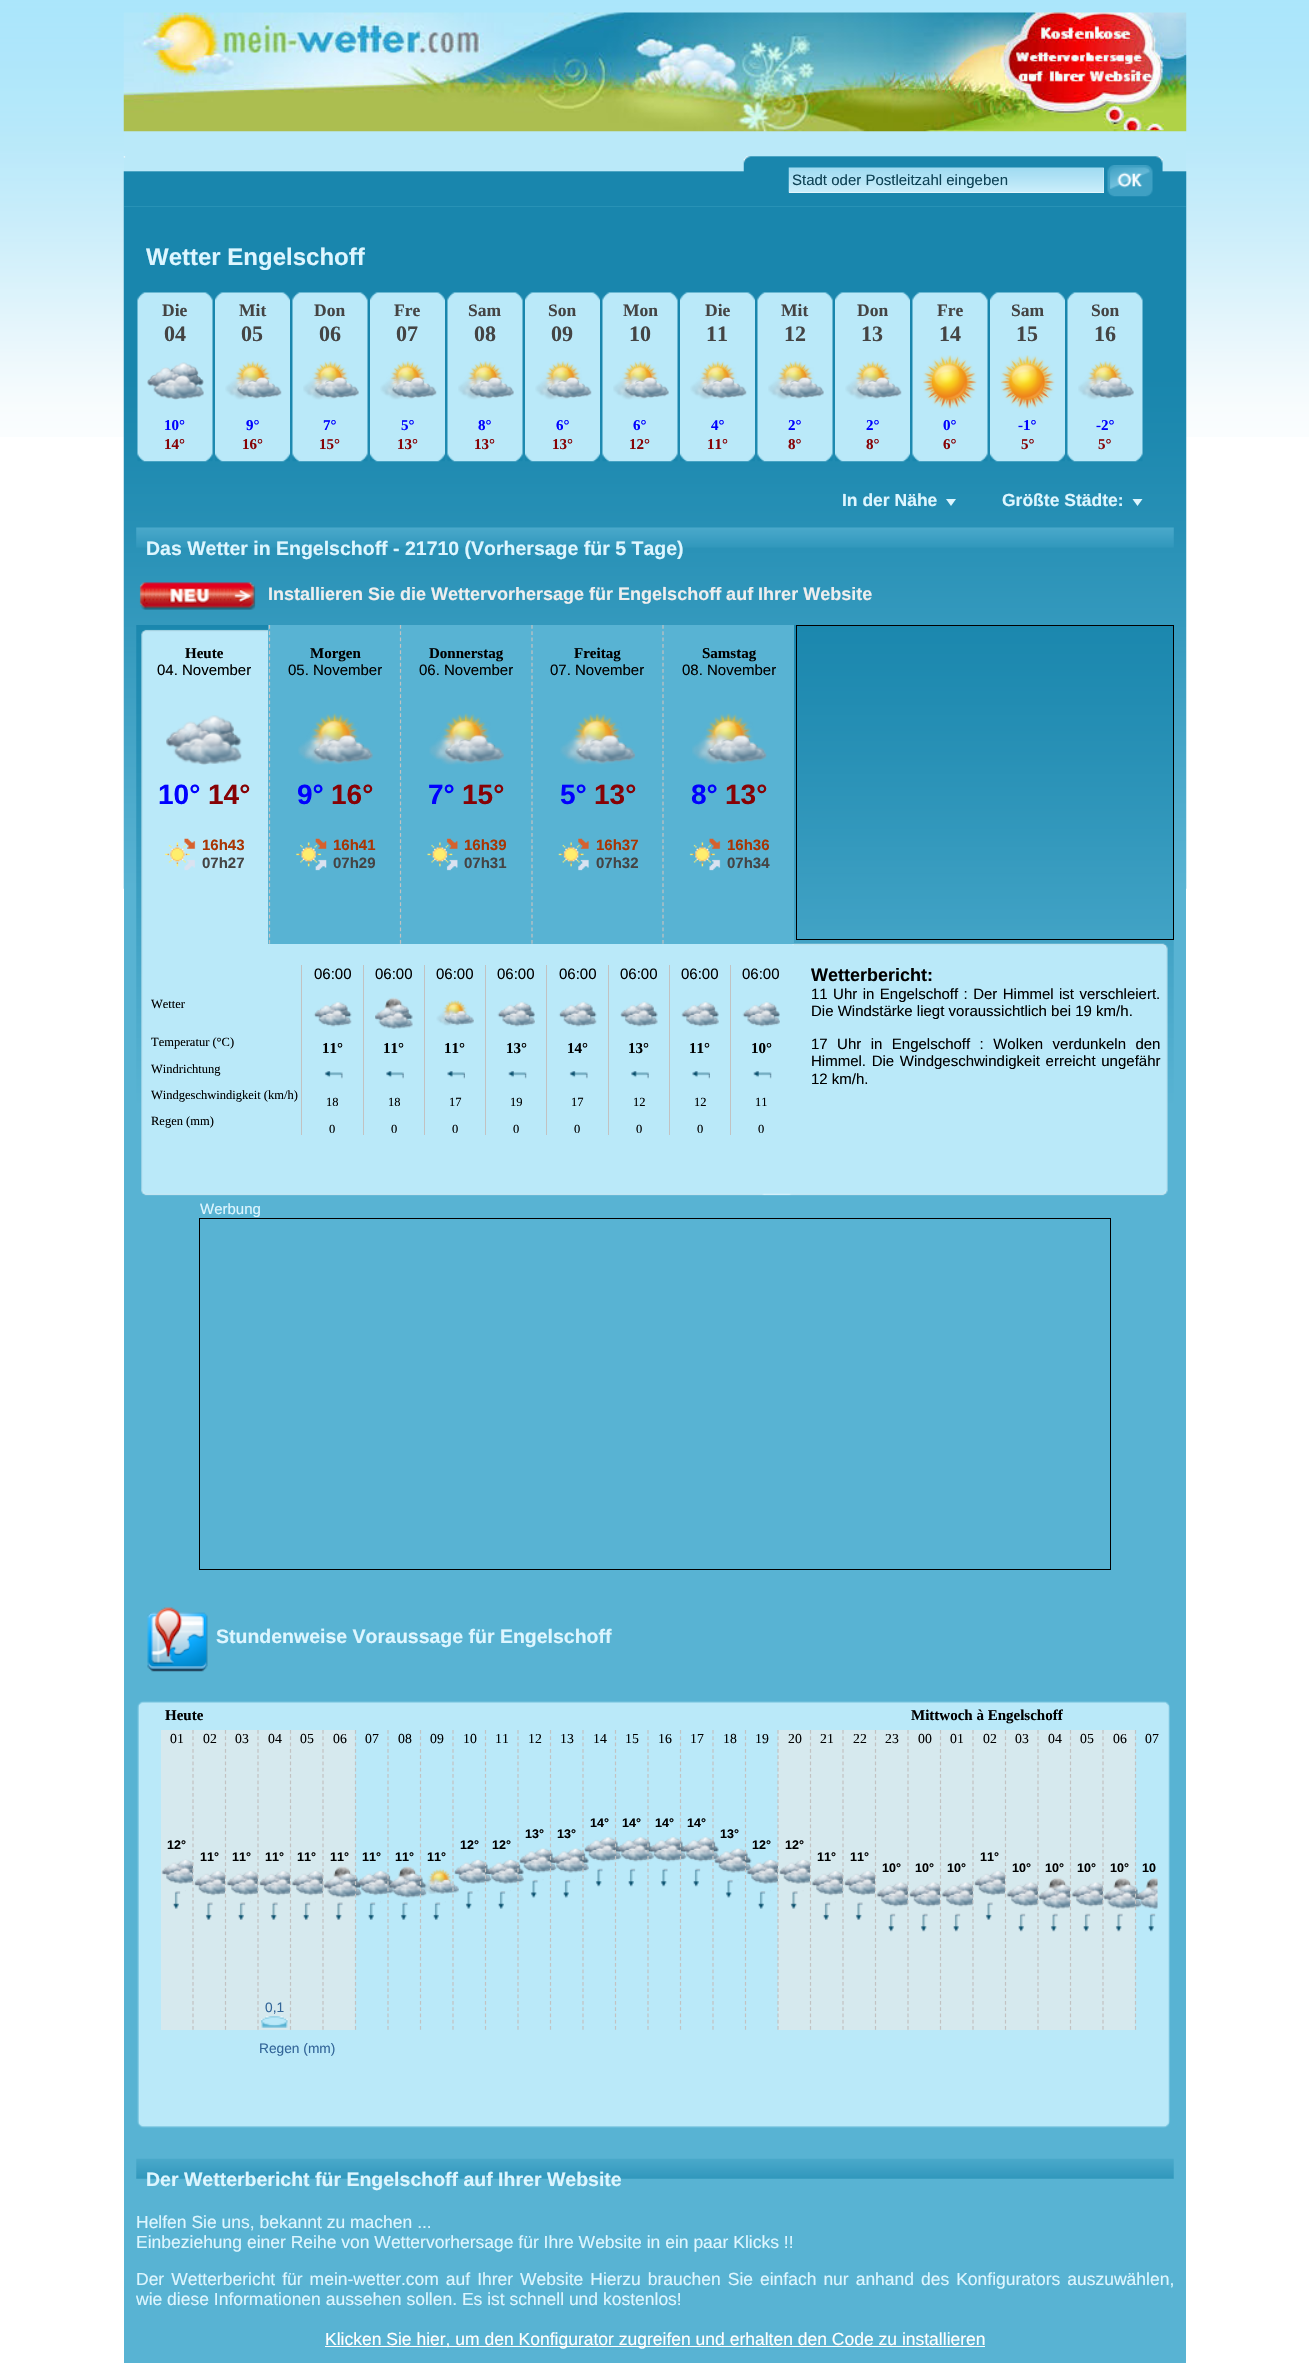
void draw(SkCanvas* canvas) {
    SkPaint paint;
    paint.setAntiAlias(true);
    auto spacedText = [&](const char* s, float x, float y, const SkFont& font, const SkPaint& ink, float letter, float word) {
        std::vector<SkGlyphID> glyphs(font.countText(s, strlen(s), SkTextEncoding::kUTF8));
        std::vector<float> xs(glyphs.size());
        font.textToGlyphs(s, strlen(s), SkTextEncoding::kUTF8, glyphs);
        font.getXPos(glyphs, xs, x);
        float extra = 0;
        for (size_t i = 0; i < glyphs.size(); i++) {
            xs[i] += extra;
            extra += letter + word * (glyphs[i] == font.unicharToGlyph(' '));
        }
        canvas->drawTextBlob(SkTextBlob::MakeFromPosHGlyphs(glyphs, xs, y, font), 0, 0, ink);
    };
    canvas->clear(0xFFFFFFFF);
    canvas->drawImageRect(SkImages::DeferredFromEncodedData(SkData::MakeFromFileName("img1.png")), SkRect::MakeXYWH(0, 0, 1309, 437), SkSamplingOptions());
    paint.setColor(0xFFBAE9F9);
    canvas->drawRect(SkRect::MakeXYWH(124, 131, 1062, 41), paint);
    canvas->drawImageRect(SkImages::DeferredFromEncodedData(SkData::MakeFromFileName("img2.png")), SkRect::MakeXYWH(123, 12, 1064, 120), SkSamplingOptions());
    canvas->drawImageRect(SkImages::DeferredFromEncodedData(SkData::MakeFromFileName("img3.png")), SkRect::MakeXYWH(123, 156, 1064, 51), SkSamplingOptions());
    paint.setColor(0xFFFFFFFF);
    canvas->drawRect(SkRect::MakeXYWH(789, 168, 315, 25), paint);
    canvas->drawImageRect(SkImages::DeferredFromEncodedData(SkData::MakeFromFileName("img4.png")), SkRect::MakeXYWH(788, 167, 316, 26), SkSamplingOptions());
    SkFont font1(fontMgr->matchFamilyStyle("Liberation Sans", SkFontStyle::Normal()), 15);
    font1.setSubpixel(true);
    paint.setColor(0xFF0E4356);
    canvas->drawString("Stadt oder Postleitzahl eingeben", 792, 185, font1, paint);
    canvas->drawImageRect(SkImages::DeferredFromEncodedData(SkData::MakeFromFileName("img5.png")), SkRect::MakeXYWH(1107, 165, 46, 32), SkSamplingOptions());
    paint.setColor(0xFF58B3D3);
    canvas->drawRect(SkRect::MakeXYWH(124, 206, 1062, 2157), paint);
    canvas->drawImageRect(SkImages::DeferredFromEncodedData(SkData::MakeFromFileName("img6.png")), SkRect::MakeXYWH(123, 206, 1064, 683), SkSamplingOptions());
    SkFont font2(fontMgr->matchFamilyStyle("Liberation Sans", SkFontStyle::Bold()), 24);
    font2.setSubpixel(true);
    paint.setColor(0xFFDDF6FF);
    canvas->drawString("Wetter Engelschoff", 146, 265, font2, paint);
    canvas->drawImageRect(SkImages::DeferredFromEncodedData(SkData::MakeFromFileName("img7.png")), SkRect::MakeXYWH(137, 292, 76, 170), SkSamplingOptions());
    SkFont font3(fontMgr->matchFamilyStyle("Liberation Serif", SkFontStyle::Bold()), 17.5f);
    font3.setSubpixel(true);
    paint.setColor(0xFF444444);
    canvas->drawString("Die", 162, 316, font3, paint);
    SkFont font4(fontMgr->matchFamilyStyle("Liberation Serif", SkFontStyle::Bold()), 22);
    font4.setSubpixel(true);
    canvas->drawString("04", 164, 341, font4, paint);
    canvas->drawImageRect(SkImages::DeferredFromEncodedData(SkData::MakeFromFileName("img8.png")), SkRect::MakeXYWH(147, 362, 57, 38), SkSamplingOptions());
    SkFont font5(fontMgr->matchFamilyStyle("Liberation Serif", SkFontStyle::Bold()), 15);
    font5.setSubpixel(true);
    paint.setColor(0xFF0000FF);
    canvas->drawString("10°", 164, 430, font5, paint);
    paint.setColor(0xFF860205);
    canvas->drawString("14°", 164, 449, font5, paint);
    canvas->drawImageRect(SkImages::DeferredFromEncodedData(SkData::MakeFromFileName("img9.png")), SkRect::MakeXYWH(215, 292, 75, 170), SkSamplingOptions());
    paint.setColor(0xFF444444);
    canvas->drawString("Mit", 239, 316, font3, paint);
    canvas->drawString("05", 241, 341, font4, paint);
    canvas->drawImageRect(SkImages::DeferredFromEncodedData(SkData::MakeFromFileName("img10.png")), SkRect::MakeXYWH(225, 361, 57, 39), SkSamplingOptions());
    paint.setColor(0xFF0000FF);
    canvas->drawString("9°", 246, 430, font5, paint);
    paint.setColor(0xFF860205);
    canvas->drawString("16°", 242, 449, font5, paint);
    canvas->drawImageRect(SkImages::DeferredFromEncodedData(SkData::MakeFromFileName("img11.png")), SkRect::MakeXYWH(292, 292, 76, 170), SkSamplingOptions());
    paint.setColor(0xFF444444);
    canvas->drawString("Don", 314, 316, font3, paint);
    canvas->drawString("06", 319, 341, font4, paint);
    canvas->drawImageRect(SkImages::DeferredFromEncodedData(SkData::MakeFromFileName("img12.png")), SkRect::MakeXYWH(303, 361, 56, 39), SkSamplingOptions());
    paint.setColor(0xFF0000FF);
    canvas->drawString("7°", 323, 430, font5, paint);
    paint.setColor(0xFF860205);
    canvas->drawString("15°", 319, 449, font5, paint);
    canvas->drawImageRect(SkImages::DeferredFromEncodedData(SkData::MakeFromFileName("img9.png")), SkRect::MakeXYWH(370, 292, 75, 170), SkSamplingOptions());
    paint.setColor(0xFF444444);
    canvas->drawString("Fre", 394, 316, font3, paint);
    canvas->drawString("07", 396, 341, font4, paint);
    canvas->drawImageRect(SkImages::DeferredFromEncodedData(SkData::MakeFromFileName("img13.png")), SkRect::MakeXYWH(380, 361, 57, 39), SkSamplingOptions());
    paint.setColor(0xFF0000FF);
    canvas->drawString("5°", 401, 430, font5, paint);
    paint.setColor(0xFF860205);
    canvas->drawString("13°", 397, 449, font5, paint);
    canvas->drawImageRect(SkImages::DeferredFromEncodedData(SkData::MakeFromFileName("img7.png")), SkRect::MakeXYWH(447, 292, 76, 170), SkSamplingOptions());
    paint.setColor(0xFF444444);
    canvas->drawString("Sam", 468, 316, font3, paint);
    canvas->drawString("08", 474, 341, font4, paint);
    canvas->drawImageRect(SkImages::DeferredFromEncodedData(SkData::MakeFromFileName("img12.png")), SkRect::MakeXYWH(458, 361, 56, 39), SkSamplingOptions());
    paint.setColor(0xFF0000FF);
    canvas->drawString("8°", 478, 430, font5, paint);
    paint.setColor(0xFF860205);
    canvas->drawString("13°", 474, 449, font5, paint);
    canvas->drawImageRect(SkImages::DeferredFromEncodedData(SkData::MakeFromFileName("img14.png")), SkRect::MakeXYWH(525, 292, 75, 170), SkSamplingOptions());
    paint.setColor(0xFF444444);
    canvas->drawString("Son", 548, 316, font3, paint);
    canvas->drawString("09", 551, 341, font4, paint);
    canvas->drawImageRect(SkImages::DeferredFromEncodedData(SkData::MakeFromFileName("img15.png")), SkRect::MakeXYWH(535, 361, 57, 39), SkSamplingOptions());
    paint.setColor(0xFF0000FF);
    canvas->drawString("6°", 556, 430, font5, paint);
    paint.setColor(0xFF860205);
    canvas->drawString("13°", 552, 449, font5, paint);
    canvas->drawImageRect(SkImages::DeferredFromEncodedData(SkData::MakeFromFileName("img7.png")), SkRect::MakeXYWH(602, 292, 76, 170), SkSamplingOptions());
    paint.setColor(0xFF444444);
    canvas->drawString("Mon", 623, 316, font3, paint);
    canvas->drawString("10", 629, 341, font4, paint);
    canvas->drawImageRect(SkImages::DeferredFromEncodedData(SkData::MakeFromFileName("img12.png")), SkRect::MakeXYWH(613, 361, 56, 39), SkSamplingOptions());
    paint.setColor(0xFF0000FF);
    canvas->drawString("6°", 633, 430, font5, paint);
    paint.setColor(0xFF860205);
    canvas->drawString("12°", 629, 449, font5, paint);
    canvas->drawImageRect(SkImages::DeferredFromEncodedData(SkData::MakeFromFileName("img16.png")), SkRect::MakeXYWH(680, 292, 75, 170), SkSamplingOptions());
    paint.setColor(0xFF444444);
    canvas->drawString("Die", 705, 316, font3, paint);
    canvas->drawString("11", 706, 341, font4, paint);
    canvas->drawImageRect(SkImages::DeferredFromEncodedData(SkData::MakeFromFileName("img13.png")), SkRect::MakeXYWH(690, 361, 57, 39), SkSamplingOptions());
    paint.setColor(0xFF0000FF);
    canvas->drawString("4°", 711, 430, font5, paint);
    paint.setColor(0xFF860205);
    canvas->drawString("11°", 707, 449, font5, paint);
    canvas->drawImageRect(SkImages::DeferredFromEncodedData(SkData::MakeFromFileName("img7.png")), SkRect::MakeXYWH(757, 292, 76, 170), SkSamplingOptions());
    paint.setColor(0xFF444444);
    canvas->drawString("Mit", 781, 316, font3, paint);
    canvas->drawString("12", 784, 341, font4, paint);
    canvas->drawImageRect(SkImages::DeferredFromEncodedData(SkData::MakeFromFileName("img17.png")), SkRect::MakeXYWH(768, 361, 56, 39), SkSamplingOptions());
    paint.setColor(0xFF0000FF);
    canvas->drawString("2°", 788, 430, font5, paint);
    paint.setColor(0xFF860205);
    canvas->drawString("8°", 788, 449, font5, paint);
    canvas->drawImageRect(SkImages::DeferredFromEncodedData(SkData::MakeFromFileName("img16.png")), SkRect::MakeXYWH(835, 292, 75, 170), SkSamplingOptions());
    paint.setColor(0xFF444444);
    canvas->drawString("Don", 857, 316, font3, paint);
    canvas->drawString("13", 861, 341, font4, paint);
    canvas->drawImageRect(SkImages::DeferredFromEncodedData(SkData::MakeFromFileName("img15.png")), SkRect::MakeXYWH(845, 361, 57, 39), SkSamplingOptions());
    paint.setColor(0xFF0000FF);
    canvas->drawString("2°", 866, 430, font5, paint);
    paint.setColor(0xFF860205);
    canvas->drawString("8°", 866, 449, font5, paint);
    canvas->drawImageRect(SkImages::DeferredFromEncodedData(SkData::MakeFromFileName("img7.png")), SkRect::MakeXYWH(912, 292, 76, 170), SkSamplingOptions());
    paint.setColor(0xFF444444);
    canvas->drawString("Fre", 937, 316, font3, paint);
    canvas->drawString("14", 939, 341, font4, paint);
    canvas->drawImageRect(SkImages::DeferredFromEncodedData(SkData::MakeFromFileName("img18.png")), SkRect::MakeXYWH(923, 355, 54, 54), SkSamplingOptions());
    paint.setColor(0xFF0000FF);
    canvas->drawString("0°", 943, 430, font5, paint);
    paint.setColor(0xFF860205);
    canvas->drawString("6°", 943, 449, font5, paint);
    canvas->drawImageRect(SkImages::DeferredFromEncodedData(SkData::MakeFromFileName("img14.png")), SkRect::MakeXYWH(990, 292, 75, 170), SkSamplingOptions());
    paint.setColor(0xFF444444);
    canvas->drawString("Sam", 1011, 316, font3, paint);
    canvas->drawString("15", 1016, 341, font4, paint);
    canvas->drawImageRect(SkImages::DeferredFromEncodedData(SkData::MakeFromFileName("img19.png")), SkRect::MakeXYWH(1000, 355, 55, 54), SkSamplingOptions());
    paint.setColor(0xFF0000FF);
    canvas->drawString("-1°", 1018, 430, font5, paint);
    paint.setColor(0xFF860205);
    canvas->drawString("5°", 1021, 449, font5, paint);
    canvas->drawImageRect(SkImages::DeferredFromEncodedData(SkData::MakeFromFileName("img11.png")), SkRect::MakeXYWH(1067, 292, 76, 170), SkSamplingOptions());
    paint.setColor(0xFF444444);
    canvas->drawString("Son", 1091, 316, font3, paint);
    canvas->drawString("16", 1094, 341, font4, paint);
    canvas->drawImageRect(SkImages::DeferredFromEncodedData(SkData::MakeFromFileName("img12.png")), SkRect::MakeXYWH(1078, 361, 56, 39), SkSamplingOptions());
    paint.setColor(0xFF0000FF);
    canvas->drawString("-2°", 1096, 430, font5, paint);
    paint.setColor(0xFF860205);
    canvas->drawString("5°", 1098, 449, font5, paint);
    SkFont font6(fontMgr->matchFamilyStyle("Liberation Sans", SkFontStyle::Bold()), 17.5f);
    font6.setSubpixel(true);
    paint.setColor(0xFFDDF6FF);
    canvas->drawString("In der Nähe", 842, 506, font6, paint);
    canvas->drawPath(SkPathBuilder().moveTo(946, 499).lineTo(956, 499).lineTo(951, 506).close().detach(), paint);
    canvas->drawString("Größte Städte:", 1002, 506, font6, paint);
    canvas->drawPath(SkPathBuilder().moveTo(1132.5f, 499).lineTo(1142.5f, 499).lineTo(1137.5f, 506).close().detach(), paint);
    canvas->drawImageRect(SkImages::DeferredFromEncodedData(SkData::MakeFromFileName("img20.png")), SkRect::MakeXYWH(136, 527, 1038, 21), SkSamplingOptions());
    SkFont font7(fontMgr->matchFamilyStyle("Liberation Sans", SkFontStyle::Bold()), 19.5f);
    font7.setSubpixel(true);
    canvas->drawString("Das Wetter in Engelschoff - 21710 (Vorhersage für 5 Tage)", 146, 555, font7, paint);
    canvas->drawImageRect(SkImages::DeferredFromEncodedData(SkData::MakeFromFileName("img21.png")), SkRect::MakeXYWH(139, 582, 117, 28), SkSamplingOptions());
    SkFont font8(fontMgr->matchFamilyStyle("Liberation Sans", SkFontStyle::Bold()), 18);
    font8.setSubpixel(true);
    paint.setColor(0xFFEEEEEE);
    canvas->drawString("Installieren Sie die Wettervorhersage für Engelschoff auf Ihrer Website", 268, 600, font8, paint);
    canvas->drawImageRect(SkImages::DeferredFromEncodedData(SkData::MakeFromFileName("img22.png")), SkRect::MakeXYWH(136, 625, 1038, 575), SkSamplingOptions());
    paint.setColor(0xFF000000);
    canvas->drawString("Heute", 185, 658, font5, paint);
    canvas->drawString("04. November", 157, 675, font1, paint);
    canvas->drawImageRect(SkImages::DeferredFromEncodedData(SkData::MakeFromFileName("img23.png")), SkRect::MakeXYWH(166, 715, 76, 50), SkSamplingOptions());
    SkFont font9(fontMgr->matchFamilyStyle("Liberation Sans", SkFontStyle::Bold()), 28);
    font9.setSubpixel(true);
    paint.setColor(0xFF0000FF);
    canvas->drawString("10°", 158, 804, font9, paint);
    paint.setColor(0xFF860205);
    canvas->drawString("14°", 208, 804, font9, paint);
    canvas->drawImageRect(SkImages::DeferredFromEncodedData(SkData::MakeFromFileName("img24.png")), SkRect::MakeXYWH(164, 838, 32, 33), SkSamplingOptions());
    SkFont font10(fontMgr->matchFamilyStyle("Liberation Sans", SkFontStyle::Bold()), 15);
    font10.setSubpixel(true);
    paint.setColor(0xFFA93503);
    canvas->drawString("16h43", 202, 850, font10, paint);
    paint.setColor(0xFF444444);
    canvas->drawString("07h27", 202, 868, font10, paint);
    paint.setColor(0xFF58B3D3);
    canvas->drawRect(SkRect::MakeXYWH(268, 625, 526, 319), paint);
    paint.setStyle(SkPaint::kStroke_Style);
    paint.setStrokeWidth(1.2f);
    paint.setColor(0xFFC2C2C2);
    paint.setPathEffect(SkDashPathEffect::Make({{3.75f, 2.55f}}, 0));
    canvas->drawPath(SkPathBuilder().moveTo(269.5f, 625).lineTo(269.5f, 944).detach(), paint);
    paint.setPathEffect(nullptr);
    paint.setStyle(SkPaint::kFill_Style);
    paint.setColor(0xFF000000);
    canvas->drawString("Morgen", 310, 658, font5, paint);
    canvas->drawString("05. November", 288, 675, font1, paint);
    canvas->drawImageRect(SkImages::DeferredFromEncodedData(SkData::MakeFromFileName("img25.png")), SkRect::MakeXYWH(298, 713, 75, 52), SkSamplingOptions());
    paint.setColor(0xFF0000FF);
    canvas->drawString("9°", 297, 804, font9, paint);
    paint.setColor(0xFF860205);
    canvas->drawString("16°", 331, 804, font9, paint);
    canvas->drawImageRect(SkImages::DeferredFromEncodedData(SkData::MakeFromFileName("img26.png")), SkRect::MakeXYWH(296, 838, 31, 33), SkSamplingOptions());
    paint.setColor(0xFFA93503);
    canvas->drawString("16h41", 333, 850, font10, paint);
    paint.setColor(0xFF444444);
    canvas->drawString("07h29", 333, 868, font10, paint);
    paint.setStyle(SkPaint::kStroke_Style);
    paint.setColor(0xFFC2C2C2);
    paint.setPathEffect(SkDashPathEffect::Make({{3.75f, 2.55f}}, 0));
    canvas->drawPath(SkPathBuilder().moveTo(400.5f, 625).lineTo(400.5f, 944).detach(), paint);
    paint.setPathEffect(nullptr);
    paint.setStyle(SkPaint::kFill_Style);
    paint.setColor(0xFF000000);
    canvas->drawString("Donnerstag", 429, 658, font5, paint);
    canvas->drawString("06. November", 419, 675, font1, paint);
    canvas->drawImageRect(SkImages::DeferredFromEncodedData(SkData::MakeFromFileName("img27.png")), SkRect::MakeXYWH(429, 713, 75, 52), SkSamplingOptions());
    paint.setColor(0xFF0000FF);
    canvas->drawString("7°", 428, 804, font9, paint);
    paint.setColor(0xFF860205);
    canvas->drawString("15°", 462, 804, font9, paint);
    canvas->drawImageRect(SkImages::DeferredFromEncodedData(SkData::MakeFromFileName("img28.png")), SkRect::MakeXYWH(427, 838, 31, 33), SkSamplingOptions());
    paint.setColor(0xFFA93503);
    canvas->drawString("16h39", 464, 850, font10, paint);
    paint.setColor(0xFF444444);
    canvas->drawString("07h31", 464, 868, font10, paint);
    paint.setStyle(SkPaint::kStroke_Style);
    paint.setColor(0xFFC2C2C2);
    paint.setPathEffect(SkDashPathEffect::Make({{3.75f, 2.55f}}, 0));
    canvas->drawPath(SkPathBuilder().moveTo(532, 625).lineTo(532, 944).detach(), paint);
    paint.setPathEffect(nullptr);
    paint.setStyle(SkPaint::kFill_Style);
    paint.setColor(0xFF000000);
    canvas->drawString("Freitag", 574, 658, font5, paint);
    canvas->drawString("07. November", 550, 675, font1, paint);
    canvas->drawImageRect(SkImages::DeferredFromEncodedData(SkData::MakeFromFileName("img29.png")), SkRect::MakeXYWH(560, 713, 75, 52), SkSamplingOptions());
    paint.setColor(0xFF0000FF);
    canvas->drawString("5°", 560, 804, font9, paint);
    paint.setColor(0xFF860205);
    canvas->drawString("13°", 594, 804, font9, paint);
    canvas->drawImageRect(SkImages::DeferredFromEncodedData(SkData::MakeFromFileName("img30.png")), SkRect::MakeXYWH(558, 838, 31, 33), SkSamplingOptions());
    paint.setColor(0xFFA93503);
    canvas->drawString("16h37", 596, 850, font10, paint);
    paint.setColor(0xFF444444);
    canvas->drawString("07h32", 596, 868, font10, paint);
    paint.setStyle(SkPaint::kStroke_Style);
    paint.setColor(0xFFC2C2C2);
    paint.setPathEffect(SkDashPathEffect::Make({{3.75f, 2.55f}}, 0));
    canvas->drawPath(SkPathBuilder().moveTo(663, 625).lineTo(663, 944).detach(), paint);
    paint.setPathEffect(nullptr);
    paint.setStyle(SkPaint::kFill_Style);
    paint.setColor(0xFF000000);
    canvas->drawString("Samstag", 702, 658, font5, paint);
    canvas->drawString("08. November", 682, 675, font1, paint);
    canvas->drawImageRect(SkImages::DeferredFromEncodedData(SkData::MakeFromFileName("img31.png")), SkRect::MakeXYWH(692, 713, 75, 52), SkSamplingOptions());
    paint.setColor(0xFF0000FF);
    canvas->drawString("8°", 691, 804, font9, paint);
    paint.setColor(0xFF860205);
    canvas->drawString("13°", 725, 804, font9, paint);
    canvas->drawImageRect(SkImages::DeferredFromEncodedData(SkData::MakeFromFileName("img32.png")), SkRect::MakeXYWH(689, 838, 32, 33), SkSamplingOptions());
    paint.setColor(0xFFA93503);
    canvas->drawString("16h36", 727, 850, font10, paint);
    paint.setColor(0xFF444444);
    canvas->drawString("07h34", 727, 868, font10, paint);
    canvas->drawImageRect(SkImages::DeferredFromEncodedData(SkData::MakeFromFileName("img33.png")), SkRect::MakeXYWH(797, 626, 376, 313), SkSamplingOptions());
    paint.setStyle(SkPaint::kStroke_Style);
    paint.setStrokeWidth(1);
    paint.setColor(0xFF000000);
    canvas->drawRect(SkRect::MakeXYWH(796.5f, 625.5f, 377, 314), paint);
    SkFont font11(fontMgr->matchFamilyStyle("Liberation Serif", SkFontStyle::Normal()), 12.5f);
    font11.setSubpixel(true);
    paint.setStyle(SkPaint::kFill_Style);
    canvas->drawString("Wetter", 151, 1008, font11, paint);
    canvas->drawString("Temperatur (°C)", 151, 1046, font11, paint);
    canvas->drawString("Windrichtung", 151, 1073, font11, paint);
    canvas->drawString("Windgeschwindigkeit (km/h)", 151, 1099, font11, paint);
    canvas->drawString("Regen (mm)", 151, 1125, font11, paint);
    paint.setColor(0xFFC2C2C2);
    canvas->drawRect(SkRect::MakeXYWH(301, 965, 1, 170), paint);
    paint.setColor(0xFF000000);
    canvas->drawString("06:00", 314, 979, font1, paint);
    canvas->drawImageRect(SkImages::DeferredFromEncodedData(SkData::MakeFromFileName("img34.png")), SkRect::MakeXYWH(313, 1001, 39, 26), SkSamplingOptions());
    canvas->drawString("11°", 322, 1053, font5, paint);
    canvas->drawImageRect(SkImages::DeferredFromEncodedData(SkData::MakeFromFileName("img35.png")), SkRect::MakeXYWH(324, 1071, 19, 8), SkSamplingOptions());
    canvas->drawString("18", 326, 1106, font11, paint);
    canvas->drawString("0", 329, 1133, font11, paint);
    paint.setColor(0xFFC2C2C2);
    canvas->drawRect(SkRect::MakeXYWH(363, 965, 1, 170), paint);
    paint.setColor(0xFF000000);
    canvas->drawString("06:00", 375, 979, font1, paint);
    canvas->drawImageRect(SkImages::DeferredFromEncodedData(SkData::MakeFromFileName("img36.png")), SkRect::MakeXYWH(375, 997, 38, 32), SkSamplingOptions());
    canvas->drawString("11°", 383, 1053, font5, paint);
    canvas->drawImageRect(SkImages::DeferredFromEncodedData(SkData::MakeFromFileName("img37.png")), SkRect::MakeXYWH(386, 1071, 18, 8), SkSamplingOptions());
    canvas->drawString("18", 388, 1106, font11, paint);
    canvas->drawString("0", 391, 1133, font11, paint);
    paint.setColor(0xFFC2C2C2);
    canvas->drawRect(SkRect::MakeXYWH(424, 965, 1, 170), paint);
    paint.setColor(0xFF000000);
    canvas->drawString("06:00", 436, 979, font1, paint);
    canvas->drawImageRect(SkImages::DeferredFromEncodedData(SkData::MakeFromFileName("img38.png")), SkRect::MakeXYWH(436, 1000, 38, 26), SkSamplingOptions());
    canvas->drawString("11°", 444, 1053, font5, paint);
    canvas->drawImageRect(SkImages::DeferredFromEncodedData(SkData::MakeFromFileName("img39.png")), SkRect::MakeXYWH(447, 1071, 18, 8), SkSamplingOptions());
    canvas->drawString("17", 449, 1106, font11, paint);
    canvas->drawString("0", 452, 1133, font11, paint);
    paint.setColor(0xFFC2C2C2);
    canvas->drawRect(SkRect::MakeXYWH(485, 965, 1, 170), paint);
    paint.setColor(0xFF000000);
    canvas->drawString("06:00", 497, 979, font1, paint);
    canvas->drawImageRect(SkImages::DeferredFromEncodedData(SkData::MakeFromFileName("img40.png")), SkRect::MakeXYWH(497, 1001, 38, 26), SkSamplingOptions());
    canvas->drawString("13°", 506, 1053, font5, paint);
    canvas->drawImageRect(SkImages::DeferredFromEncodedData(SkData::MakeFromFileName("img41.png")), SkRect::MakeXYWH(508, 1071, 19, 8), SkSamplingOptions());
    canvas->drawString("19", 510, 1106, font11, paint);
    canvas->drawString("0", 513, 1133, font11, paint);
    paint.setColor(0xFFC2C2C2);
    canvas->drawRect(SkRect::MakeXYWH(546, 965, 1, 170), paint);
    paint.setColor(0xFF000000);
    canvas->drawString("06:00", 559, 979, font1, paint);
    canvas->drawImageRect(SkImages::DeferredFromEncodedData(SkData::MakeFromFileName("img42.png")), SkRect::MakeXYWH(558, 1001, 39, 26), SkSamplingOptions());
    canvas->drawString("14°", 567, 1053, font5, paint);
    canvas->drawImageRect(SkImages::DeferredFromEncodedData(SkData::MakeFromFileName("img43.png")), SkRect::MakeXYWH(569, 1071, 19, 8), SkSamplingOptions());
    canvas->drawString("17", 571, 1106, font11, paint);
    canvas->drawString("0", 574, 1133, font11, paint);
    paint.setColor(0xFFC2C2C2);
    canvas->drawRect(SkRect::MakeXYWH(608, 965, 1, 170), paint);
    paint.setColor(0xFF000000);
    canvas->drawString("06:00", 620, 979, font1, paint);
    canvas->drawImageRect(SkImages::DeferredFromEncodedData(SkData::MakeFromFileName("img44.png")), SkRect::MakeXYWH(620, 1001, 38, 26), SkSamplingOptions());
    canvas->drawString("13°", 628, 1053, font5, paint);
    canvas->drawImageRect(SkImages::DeferredFromEncodedData(SkData::MakeFromFileName("img37.png")), SkRect::MakeXYWH(631, 1071, 18, 8), SkSamplingOptions());
    canvas->drawString("12", 633, 1106, font11, paint);
    canvas->drawString("0", 636, 1133, font11, paint);
    paint.setColor(0xFFC2C2C2);
    canvas->drawRect(SkRect::MakeXYWH(669, 965, 1, 170), paint);
    paint.setColor(0xFF000000);
    canvas->drawString("06:00", 681, 979, font1, paint);
    canvas->drawImageRect(SkImages::DeferredFromEncodedData(SkData::MakeFromFileName("img45.png")), SkRect::MakeXYWH(681, 1001, 38, 26), SkSamplingOptions());
    canvas->drawString("11°", 689, 1053, font5, paint);
    canvas->drawImageRect(SkImages::DeferredFromEncodedData(SkData::MakeFromFileName("img39.png")), SkRect::MakeXYWH(692, 1071, 18, 8), SkSamplingOptions());
    canvas->drawString("12", 694, 1106, font11, paint);
    canvas->drawString("0", 697, 1133, font11, paint);
    paint.setColor(0xFFC2C2C2);
    canvas->drawRect(SkRect::MakeXYWH(730, 965, 1, 170), paint);
    paint.setColor(0xFF000000);
    canvas->drawString("06:00", 742, 979, font1, paint);
    canvas->drawImageRect(SkImages::DeferredFromEncodedData(SkData::MakeFromFileName("img40.png")), SkRect::MakeXYWH(742, 1001, 38, 26), SkSamplingOptions());
    canvas->drawString("10°", 751, 1053, font5, paint);
    canvas->drawImageRect(SkImages::DeferredFromEncodedData(SkData::MakeFromFileName("img41.png")), SkRect::MakeXYWH(753, 1071, 19, 8), SkSamplingOptions());
    canvas->drawString("11", 755, 1106, font11, paint);
    canvas->drawString("0", 758, 1133, font11, paint);
    canvas->drawString("Wetterbericht:", 811, 981, font8, paint);
    spacedText("11 Uhr in Engelschoff : Der Himmel ist verschleiert.", 811, 999, font1, paint, 0, 1.25f);
    canvas->drawString("Die Windstärke liegt voraussichtlich bei 19 km/h.", 811, 1016, font1, paint);
    spacedText("17 Uhr in Engelschoff : Wolken verdunkeln den", 811, 1049, font1, paint, 0, 5.25f);
    spacedText("Himmel. Die Windgeschwindigkeit erreicht ungefähr", 811, 1066, font1, paint, 0, 1.5f);
    canvas->drawString("12 km/h.", 811, 1084, font1, paint);
    paint.setColor(0xFFDDF6FF);
    canvas->drawString("Werbung", 200, 1214, font1, paint);
    paint.setStyle(SkPaint::kStroke_Style);
    paint.setColor(0xFF000000);
    canvas->drawRect(SkRect::MakeXYWH(199.5f, 1218.5f, 911, 351), paint);
    canvas->drawImageRect(SkImages::DeferredFromEncodedData(SkData::MakeFromFileName("img46.png")), SkRect::MakeXYWH(147, 1607, 61, 65), SkSamplingOptions());
    paint.setStyle(SkPaint::kFill_Style);
    paint.setColor(0xFFDDF6FF);
    canvas->drawString("Stundenweise Voraussage für Engelschoff", 216, 1643, font7, paint);
    canvas->drawImageRect(SkImages::DeferredFromEncodedData(SkData::MakeFromFileName("img47.png")), SkRect::MakeXYWH(137, 1701, 1033, 427), SkSamplingOptions());
    paint.setColor(0xFF000000);
    canvas->drawString("Heute", 165, 1720, font5, paint);
    paint.setColor(0xFFD6E9EE);
    canvas->drawRect(SkRect::MakeXYWH(161, 1730, 194, 300), paint);
    SkFont font12(fontMgr->matchFamilyStyle("Liberation Serif", SkFontStyle::Normal()), 13.75f);
    font12.setSubpixel(true);
    paint.setColor(0xFF000000);
    canvas->drawString("01", 170, 1743, font12, paint);
    SkFont font13(fontMgr->matchFamilyStyle("Liberation Sans", SkFontStyle::Bold()), 12.5f);
    font13.setSubpixel(true);
    canvas->drawString("12°", 167, 1849, font13, paint);
    canvas->drawImageRect(SkImages::DeferredFromEncodedData(SkData::MakeFromFileName("img48.png")), SkRect::MakeXYWH(161, 1859, 32, 25), SkSamplingOptions());
    canvas->drawImageRect(SkImages::DeferredFromEncodedData(SkData::MakeFromFileName("img49.png")), SkRect::MakeXYWH(172, 1890, 14, 19), SkSamplingOptions());
    paint.setStyle(SkPaint::kStroke_Style);
    paint.setStrokeWidth(1.2f);
    paint.setColor(0xFFC2C2C2);
    paint.setPathEffect(SkDashPathEffect::Make({{3.75f, 2.55f}}, 0));
    canvas->drawPath(SkPathBuilder().moveTo(193, 1730).lineTo(193, 2030).detach(), paint);
    paint.setPathEffect(nullptr);
    paint.setStyle(SkPaint::kFill_Style);
    paint.setColor(0xFF000000);
    canvas->drawString("02", 203, 1743, font12, paint);
    canvas->drawString("11°", 200, 1861, font13, paint);
    canvas->drawImageRect(SkImages::DeferredFromEncodedData(SkData::MakeFromFileName("img50.png")), SkRect::MakeXYWH(194, 1870, 31, 26), SkSamplingOptions());
    canvas->drawImageRect(SkImages::DeferredFromEncodedData(SkData::MakeFromFileName("img51.png")), SkRect::MakeXYWH(205, 1902, 8, 18), SkSamplingOptions());
    paint.setStyle(SkPaint::kStroke_Style);
    paint.setColor(0xFFC2C2C2);
    paint.setPathEffect(SkDashPathEffect::Make({{3.75f, 2.55f}}, 0));
    canvas->drawPath(SkPathBuilder().moveTo(225.5f, 1730).lineTo(225.5f, 2030).detach(), paint);
    paint.setPathEffect(nullptr);
    paint.setStyle(SkPaint::kFill_Style);
    paint.setColor(0xFF000000);
    canvas->drawString("03", 235, 1743, font12, paint);
    canvas->drawString("11°", 232, 1861, font13, paint);
    canvas->drawImageRect(SkImages::DeferredFromEncodedData(SkData::MakeFromFileName("img52.png")), SkRect::MakeXYWH(226, 1870, 32, 26), SkSamplingOptions());
    canvas->drawImageRect(SkImages::DeferredFromEncodedData(SkData::MakeFromFileName("img53.png")), SkRect::MakeXYWH(237, 1901, 14, 19), SkSamplingOptions());
    paint.setStyle(SkPaint::kStroke_Style);
    paint.setColor(0xFFC2C2C2);
    paint.setPathEffect(SkDashPathEffect::Make({{3.75f, 2.55f}}, 0));
    canvas->drawPath(SkPathBuilder().moveTo(258, 1730).lineTo(258, 2030).detach(), paint);
    paint.setPathEffect(nullptr);
    paint.setStyle(SkPaint::kFill_Style);
    paint.setColor(0xFF000000);
    canvas->drawString("04", 268, 1743, font12, paint);
    canvas->drawString("11°", 265, 1861, font13, paint);
    canvas->drawImageRect(SkImages::DeferredFromEncodedData(SkData::MakeFromFileName("img50.png")), SkRect::MakeXYWH(259, 1870, 31, 26), SkSamplingOptions());
    canvas->drawImageRect(SkImages::DeferredFromEncodedData(SkData::MakeFromFileName("img54.png")), SkRect::MakeXYWH(270, 1902, 8, 18), SkSamplingOptions());
    SkFont font14(fontMgr->matchFamilyStyle("Liberation Sans", SkFontStyle::Normal()), 13.75f);
    font14.setSubpixel(true);
    paint.setColor(0xFF336699);
    canvas->drawString("0,1", 265, 2012, font14, paint);
    canvas->drawImageRect(SkImages::DeferredFromEncodedData(SkData::MakeFromFileName("img55.png")), SkRect::MakeXYWH(261, 2016, 27, 11), SkSamplingOptions());
    canvas->drawImageRect(SkImages::DeferredFromEncodedData(SkData::MakeFromFileName("img56.png")), SkRect::MakeXYWH(261, 2026, 27, 2), SkSamplingOptions());
    canvas->drawString("Regen (mm)", 259, 2053, font14, paint);
    paint.setStyle(SkPaint::kStroke_Style);
    paint.setColor(0xFFC2C2C2);
    paint.setPathEffect(SkDashPathEffect::Make({{3.75f, 2.55f}}, 0));
    canvas->drawPath(SkPathBuilder().moveTo(290.5f, 1730).lineTo(290.5f, 2030).detach(), paint);
    paint.setPathEffect(nullptr);
    paint.setStyle(SkPaint::kFill_Style);
    paint.setColor(0xFF000000);
    canvas->drawString("05", 300, 1743, font12, paint);
    canvas->drawString("11°", 297, 1861, font13, paint);
    canvas->drawImageRect(SkImages::DeferredFromEncodedData(SkData::MakeFromFileName("img52.png")), SkRect::MakeXYWH(291, 1870, 32, 26), SkSamplingOptions());
    canvas->drawImageRect(SkImages::DeferredFromEncodedData(SkData::MakeFromFileName("img53.png")), SkRect::MakeXYWH(302, 1901, 14, 19), SkSamplingOptions());
    paint.setStyle(SkPaint::kStroke_Style);
    paint.setColor(0xFFC2C2C2);
    paint.setPathEffect(SkDashPathEffect::Make({{3.75f, 2.55f}}, 0));
    canvas->drawPath(SkPathBuilder().moveTo(323, 1730).lineTo(323, 2030).detach(), paint);
    paint.setPathEffect(nullptr);
    paint.setStyle(SkPaint::kFill_Style);
    paint.setColor(0xFF000000);
    canvas->drawString("06", 333, 1743, font12, paint);
    canvas->drawString("11°", 330, 1861, font13, paint);
    canvas->drawImageRect(SkImages::DeferredFromEncodedData(SkData::MakeFromFileName("img57.png")), SkRect::MakeXYWH(323, 1866, 39, 32), SkSamplingOptions());
    canvas->drawImageRect(SkImages::DeferredFromEncodedData(SkData::MakeFromFileName("img51.png")), SkRect::MakeXYWH(335, 1902, 8, 18), SkSamplingOptions());
    paint.setStyle(SkPaint::kStroke_Style);
    paint.setColor(0xFFC2C2C2);
    paint.setPathEffect(SkDashPathEffect::Make({{3.75f, 2.55f}}, 0));
    canvas->drawPath(SkPathBuilder().moveTo(355.5f, 1730).lineTo(355.5f, 2030).detach(), paint);
    paint.setPathEffect(nullptr);
    paint.setStyle(SkPaint::kFill_Style);
    paint.setColor(0xFF000000);
    canvas->drawString("07", 365, 1743, font12, paint);
    canvas->drawString("11°", 362, 1861, font13, paint);
    canvas->drawImageRect(SkImages::DeferredFromEncodedData(SkData::MakeFromFileName("img58.png")), SkRect::MakeXYWH(357, 1870, 37, 26), SkSamplingOptions());
    canvas->drawImageRect(SkImages::DeferredFromEncodedData(SkData::MakeFromFileName("img59.png")), SkRect::MakeXYWH(367, 1901, 14, 19), SkSamplingOptions());
    paint.setStyle(SkPaint::kStroke_Style);
    paint.setColor(0xFFC2C2C2);
    paint.setPathEffect(SkDashPathEffect::Make({{3.75f, 2.55f}}, 0));
    canvas->drawPath(SkPathBuilder().moveTo(388, 1730).lineTo(388, 2030).detach(), paint);
    paint.setPathEffect(nullptr);
    paint.setStyle(SkPaint::kFill_Style);
    paint.setColor(0xFF000000);
    canvas->drawString("08", 398, 1743, font12, paint);
    canvas->drawString("11°", 395, 1861, font13, paint);
    canvas->drawImageRect(SkImages::DeferredFromEncodedData(SkData::MakeFromFileName("img60.png")), SkRect::MakeXYWH(388, 1866, 39, 32), SkSamplingOptions());
    canvas->drawImageRect(SkImages::DeferredFromEncodedData(SkData::MakeFromFileName("img61.png")), SkRect::MakeXYWH(400, 1902, 8, 18), SkSamplingOptions());
    paint.setStyle(SkPaint::kStroke_Style);
    paint.setColor(0xFFC2C2C2);
    paint.setPathEffect(SkDashPathEffect::Make({{3.75f, 2.55f}}, 0));
    canvas->drawPath(SkPathBuilder().moveTo(420.5f, 1730).lineTo(420.5f, 2030).detach(), paint);
    paint.setPathEffect(nullptr);
    paint.setStyle(SkPaint::kFill_Style);
    paint.setColor(0xFF000000);
    canvas->drawString("09", 430, 1743, font12, paint);
    canvas->drawString("11°", 427, 1861, font13, paint);
    canvas->drawImageRect(SkImages::DeferredFromEncodedData(SkData::MakeFromFileName("img62.png")), SkRect::MakeXYWH(422, 1868, 37, 26), SkSamplingOptions());
    canvas->drawImageRect(SkImages::DeferredFromEncodedData(SkData::MakeFromFileName("img63.png")), SkRect::MakeXYWH(432, 1901, 14, 19), SkSamplingOptions());
    paint.setStyle(SkPaint::kStroke_Style);
    paint.setColor(0xFFC2C2C2);
    paint.setPathEffect(SkDashPathEffect::Make({{3.75f, 2.55f}}, 0));
    canvas->drawPath(SkPathBuilder().moveTo(453, 1730).lineTo(453, 2030).detach(), paint);
    paint.setPathEffect(nullptr);
    paint.setStyle(SkPaint::kFill_Style);
    paint.setColor(0xFF000000);
    canvas->drawString("10", 463, 1743, font12, paint);
    canvas->drawString("12°", 460, 1849, font13, paint);
    canvas->drawImageRect(SkImages::DeferredFromEncodedData(SkData::MakeFromFileName("img64.png")), SkRect::MakeXYWH(454, 1859, 38, 25), SkSamplingOptions());
    canvas->drawImageRect(SkImages::DeferredFromEncodedData(SkData::MakeFromFileName("img65.png")), SkRect::MakeXYWH(465, 1890, 14, 19), SkSamplingOptions());
    paint.setStyle(SkPaint::kStroke_Style);
    paint.setColor(0xFFC2C2C2);
    paint.setPathEffect(SkDashPathEffect::Make({{3.75f, 2.55f}}, 0));
    canvas->drawPath(SkPathBuilder().moveTo(485.5f, 1730).lineTo(485.5f, 2030).detach(), paint);
    paint.setPathEffect(nullptr);
    paint.setStyle(SkPaint::kFill_Style);
    paint.setColor(0xFF000000);
    canvas->drawString("11", 495, 1743, font12, paint);
    canvas->drawString("12°", 492, 1849, font13, paint);
    canvas->drawImageRect(SkImages::DeferredFromEncodedData(SkData::MakeFromFileName("img66.png")), SkRect::MakeXYWH(487, 1859, 37, 25), SkSamplingOptions());
    canvas->drawImageRect(SkImages::DeferredFromEncodedData(SkData::MakeFromFileName("img67.png")), SkRect::MakeXYWH(497, 1890, 14, 19), SkSamplingOptions());
    paint.setStyle(SkPaint::kStroke_Style);
    paint.setColor(0xFFC2C2C2);
    paint.setPathEffect(SkDashPathEffect::Make({{3.75f, 2.55f}}, 0));
    canvas->drawPath(SkPathBuilder().moveTo(518, 1730).lineTo(518, 2030).detach(), paint);
    paint.setPathEffect(nullptr);
    paint.setStyle(SkPaint::kFill_Style);
    paint.setColor(0xFF000000);
    canvas->drawString("12", 528, 1743, font12, paint);
    canvas->drawString("13°", 525, 1838, font13, paint);
    canvas->drawImageRect(SkImages::DeferredFromEncodedData(SkData::MakeFromFileName("img68.png")), SkRect::MakeXYWH(519, 1848, 38, 25), SkSamplingOptions());
    canvas->drawImageRect(SkImages::DeferredFromEncodedData(SkData::MakeFromFileName("img69.png")), SkRect::MakeXYWH(530, 1879, 14, 19), SkSamplingOptions());
    paint.setStyle(SkPaint::kStroke_Style);
    paint.setColor(0xFFC2C2C2);
    paint.setPathEffect(SkDashPathEffect::Make({{3.75f, 2.55f}}, 0));
    canvas->drawPath(SkPathBuilder().moveTo(550.5f, 1730).lineTo(550.5f, 2030).detach(), paint);
    paint.setPathEffect(nullptr);
    paint.setStyle(SkPaint::kFill_Style);
    paint.setColor(0xFF000000);
    canvas->drawString("13", 560, 1743, font12, paint);
    canvas->drawString("13°", 557, 1838, font13, paint);
    canvas->drawImageRect(SkImages::DeferredFromEncodedData(SkData::MakeFromFileName("img70.png")), SkRect::MakeXYWH(552, 1848, 37, 25), SkSamplingOptions());
    canvas->drawImageRect(SkImages::DeferredFromEncodedData(SkData::MakeFromFileName("img71.png")), SkRect::MakeXYWH(563, 1879, 13, 19), SkSamplingOptions());
    paint.setStyle(SkPaint::kStroke_Style);
    paint.setColor(0xFFC2C2C2);
    paint.setPathEffect(SkDashPathEffect::Make({{3.75f, 2.55f}}, 0));
    canvas->drawPath(SkPathBuilder().moveTo(583, 1730).lineTo(583, 2030).detach(), paint);
    paint.setPathEffect(nullptr);
    paint.setStyle(SkPaint::kFill_Style);
    paint.setColor(0xFF000000);
    canvas->drawString("14", 593, 1743, font12, paint);
    canvas->drawString("14°", 590, 1827, font13, paint);
    canvas->drawImageRect(SkImages::DeferredFromEncodedData(SkData::MakeFromFileName("img72.png")), SkRect::MakeXYWH(584, 1836, 38, 26), SkSamplingOptions());
    canvas->drawImageRect(SkImages::DeferredFromEncodedData(SkData::MakeFromFileName("img73.png")), SkRect::MakeXYWH(595, 1868, 8, 19), SkSamplingOptions());
    paint.setStyle(SkPaint::kStroke_Style);
    paint.setColor(0xFFC2C2C2);
    paint.setPathEffect(SkDashPathEffect::Make({{3.75f, 2.55f}}, 0));
    canvas->drawPath(SkPathBuilder().moveTo(615.5f, 1730).lineTo(615.5f, 2030).detach(), paint);
    paint.setPathEffect(nullptr);
    paint.setStyle(SkPaint::kFill_Style);
    paint.setColor(0xFF000000);
    canvas->drawString("15", 625, 1743, font12, paint);
    canvas->drawString("14°", 622, 1827, font13, paint);
    canvas->drawImageRect(SkImages::DeferredFromEncodedData(SkData::MakeFromFileName("img74.png")), SkRect::MakeXYWH(617, 1836, 37, 26), SkSamplingOptions());
    canvas->drawImageRect(SkImages::DeferredFromEncodedData(SkData::MakeFromFileName("img75.png")), SkRect::MakeXYWH(628, 1868, 8, 19), SkSamplingOptions());
    paint.setStyle(SkPaint::kStroke_Style);
    paint.setColor(0xFFC2C2C2);
    paint.setPathEffect(SkDashPathEffect::Make({{3.75f, 2.55f}}, 0));
    canvas->drawPath(SkPathBuilder().moveTo(648, 1730).lineTo(648, 2030).detach(), paint);
    paint.setPathEffect(nullptr);
    paint.setStyle(SkPaint::kFill_Style);
    paint.setColor(0xFF000000);
    canvas->drawString("16", 658, 1743, font12, paint);
    canvas->drawString("14°", 655, 1827, font13, paint);
    canvas->drawImageRect(SkImages::DeferredFromEncodedData(SkData::MakeFromFileName("img76.png")), SkRect::MakeXYWH(649, 1836, 38, 26), SkSamplingOptions());
    canvas->drawImageRect(SkImages::DeferredFromEncodedData(SkData::MakeFromFileName("img73.png")), SkRect::MakeXYWH(660, 1868, 8, 19), SkSamplingOptions());
    paint.setStyle(SkPaint::kStroke_Style);
    paint.setColor(0xFFC2C2C2);
    paint.setPathEffect(SkDashPathEffect::Make({{3.75f, 2.55f}}, 0));
    canvas->drawPath(SkPathBuilder().moveTo(680.5f, 1730).lineTo(680.5f, 2030).detach(), paint);
    paint.setPathEffect(nullptr);
    paint.setStyle(SkPaint::kFill_Style);
    paint.setColor(0xFF000000);
    canvas->drawString("17", 690, 1743, font12, paint);
    canvas->drawString("14°", 687, 1827, font13, paint);
    canvas->drawImageRect(SkImages::DeferredFromEncodedData(SkData::MakeFromFileName("img77.png")), SkRect::MakeXYWH(682, 1836, 37, 26), SkSamplingOptions());
    canvas->drawImageRect(SkImages::DeferredFromEncodedData(SkData::MakeFromFileName("img75.png")), SkRect::MakeXYWH(693, 1868, 8, 19), SkSamplingOptions());
    paint.setStyle(SkPaint::kStroke_Style);
    paint.setColor(0xFFC2C2C2);
    paint.setPathEffect(SkDashPathEffect::Make({{3.75f, 2.55f}}, 0));
    canvas->drawPath(SkPathBuilder().moveTo(713, 1730).lineTo(713, 2030).detach(), paint);
    paint.setPathEffect(nullptr);
    paint.setStyle(SkPaint::kFill_Style);
    paint.setColor(0xFF000000);
    canvas->drawString("18", 723, 1743, font12, paint);
    canvas->drawString("13°", 720, 1838, font13, paint);
    canvas->drawImageRect(SkImages::DeferredFromEncodedData(SkData::MakeFromFileName("img78.png")), SkRect::MakeXYWH(714, 1848, 38, 25), SkSamplingOptions());
    canvas->drawImageRect(SkImages::DeferredFromEncodedData(SkData::MakeFromFileName("img69.png")), SkRect::MakeXYWH(725, 1879, 14, 19), SkSamplingOptions());
    paint.setStyle(SkPaint::kStroke_Style);
    paint.setColor(0xFFC2C2C2);
    paint.setPathEffect(SkDashPathEffect::Make({{3.75f, 2.55f}}, 0));
    canvas->drawPath(SkPathBuilder().moveTo(745.5f, 1730).lineTo(745.5f, 2030).detach(), paint);
    paint.setPathEffect(nullptr);
    paint.setStyle(SkPaint::kFill_Style);
    paint.setColor(0xFF000000);
    canvas->drawString("19", 755, 1743, font12, paint);
    canvas->drawString("12°", 752, 1849, font13, paint);
    canvas->drawImageRect(SkImages::DeferredFromEncodedData(SkData::MakeFromFileName("img79.png")), SkRect::MakeXYWH(746, 1859, 32, 25), SkSamplingOptions());
    canvas->drawImageRect(SkImages::DeferredFromEncodedData(SkData::MakeFromFileName("img67.png")), SkRect::MakeXYWH(757, 1890, 14, 19), SkSamplingOptions());
    paint.setColor(0xFFD6E9EE);
    canvas->drawRect(SkRect::MakeXYWH(778, 1730, 357, 300), paint);
    paint.setStyle(SkPaint::kStroke_Style);
    paint.setColor(0xFFC2C2C2);
    paint.setPathEffect(SkDashPathEffect::Make({{3.75f, 2.55f}}, 0));
    canvas->drawPath(SkPathBuilder().moveTo(778, 1730).lineTo(778, 2030).detach(), paint);
    paint.setPathEffect(nullptr);
    paint.setStyle(SkPaint::kFill_Style);
    paint.setColor(0xFF000000);
    canvas->drawString("20", 788, 1743, font12, paint);
    canvas->drawString("12°", 785, 1849, font13, paint);
    canvas->drawImageRect(SkImages::DeferredFromEncodedData(SkData::MakeFromFileName("img80.png")), SkRect::MakeXYWH(779, 1860, 31, 24), SkSamplingOptions());
    canvas->drawImageRect(SkImages::DeferredFromEncodedData(SkData::MakeFromFileName("img81.png")), SkRect::MakeXYWH(790, 1890, 14, 19), SkSamplingOptions());
    paint.setStyle(SkPaint::kStroke_Style);
    paint.setColor(0xFFC2C2C2);
    paint.setPathEffect(SkDashPathEffect::Make({{3.75f, 2.55f}}, 0));
    canvas->drawPath(SkPathBuilder().moveTo(810.5f, 1730).lineTo(810.5f, 2030).detach(), paint);
    paint.setPathEffect(nullptr);
    paint.setStyle(SkPaint::kFill_Style);
    paint.setColor(0xFF000000);
    canvas->drawString("21", 820, 1743, font12, paint);
    canvas->drawString("11°", 817, 1861, font13, paint);
    canvas->drawImageRect(SkImages::DeferredFromEncodedData(SkData::MakeFromFileName("img52.png")), SkRect::MakeXYWH(811, 1870, 32, 26), SkSamplingOptions());
    canvas->drawImageRect(SkImages::DeferredFromEncodedData(SkData::MakeFromFileName("img82.png")), SkRect::MakeXYWH(822, 1901, 14, 19), SkSamplingOptions());
    paint.setStyle(SkPaint::kStroke_Style);
    paint.setColor(0xFFC2C2C2);
    paint.setPathEffect(SkDashPathEffect::Make({{3.75f, 2.55f}}, 0));
    canvas->drawPath(SkPathBuilder().moveTo(843, 1730).lineTo(843, 2030).detach(), paint);
    paint.setPathEffect(nullptr);
    paint.setStyle(SkPaint::kFill_Style);
    paint.setColor(0xFF000000);
    canvas->drawString("22", 853, 1743, font12, paint);
    canvas->drawString("11°", 850, 1861, font13, paint);
    canvas->drawImageRect(SkImages::DeferredFromEncodedData(SkData::MakeFromFileName("img83.png")), SkRect::MakeXYWH(844, 1870, 31, 26), SkSamplingOptions());
    canvas->drawImageRect(SkImages::DeferredFromEncodedData(SkData::MakeFromFileName("img51.png")), SkRect::MakeXYWH(855, 1902, 8, 18), SkSamplingOptions());
    paint.setStyle(SkPaint::kStroke_Style);
    paint.setColor(0xFFC2C2C2);
    paint.setPathEffect(SkDashPathEffect::Make({{3.75f, 2.55f}}, 0));
    canvas->drawPath(SkPathBuilder().moveTo(875.5f, 1730).lineTo(875.5f, 2030).detach(), paint);
    paint.setPathEffect(nullptr);
    paint.setStyle(SkPaint::kFill_Style);
    paint.setColor(0xFF000000);
    canvas->drawString("23", 885, 1743, font12, paint);
    canvas->drawString("10°", 882, 1872, font13, paint);
    canvas->drawImageRect(SkImages::DeferredFromEncodedData(SkData::MakeFromFileName("img84.png")), SkRect::MakeXYWH(876, 1882, 32, 25), SkSamplingOptions());
    canvas->drawImageRect(SkImages::DeferredFromEncodedData(SkData::MakeFromFileName("img85.png")), SkRect::MakeXYWH(888, 1913, 8, 19), SkSamplingOptions());
    canvas->drawString("Mittwoch à Engelschoff", 911, 1720, font5, paint);
    paint.setStyle(SkPaint::kStroke_Style);
    paint.setColor(0xFFC2C2C2);
    paint.setPathEffect(SkDashPathEffect::Make({{3.75f, 2.55f}}, 0));
    canvas->drawPath(SkPathBuilder().moveTo(908, 1730).lineTo(908, 2030).detach(), paint);
    paint.setPathEffect(nullptr);
    paint.setStyle(SkPaint::kFill_Style);
    paint.setColor(0xFF000000);
    canvas->drawString("00", 918, 1743, font12, paint);
    canvas->drawString("10°", 915, 1872, font13, paint);
    canvas->drawImageRect(SkImages::DeferredFromEncodedData(SkData::MakeFromFileName("img86.png")), SkRect::MakeXYWH(909, 1882, 31, 25), SkSamplingOptions());
    canvas->drawImageRect(SkImages::DeferredFromEncodedData(SkData::MakeFromFileName("img87.png")), SkRect::MakeXYWH(920, 1913, 8, 19), SkSamplingOptions());
    paint.setStyle(SkPaint::kStroke_Style);
    paint.setColor(0xFFC2C2C2);
    paint.setPathEffect(SkDashPathEffect::Make({{3.75f, 2.55f}}, 0));
    canvas->drawPath(SkPathBuilder().moveTo(940.5f, 1730).lineTo(940.5f, 2030).detach(), paint);
    paint.setPathEffect(nullptr);
    paint.setStyle(SkPaint::kFill_Style);
    paint.setColor(0xFF000000);
    canvas->drawString("01", 950, 1743, font12, paint);
    canvas->drawString("10°", 947, 1872, font13, paint);
    canvas->drawImageRect(SkImages::DeferredFromEncodedData(SkData::MakeFromFileName("img84.png")), SkRect::MakeXYWH(941, 1882, 32, 25), SkSamplingOptions());
    canvas->drawImageRect(SkImages::DeferredFromEncodedData(SkData::MakeFromFileName("img88.png")), SkRect::MakeXYWH(953, 1913, 8, 19), SkSamplingOptions());
    paint.setStyle(SkPaint::kStroke_Style);
    paint.setColor(0xFFC2C2C2);
    paint.setPathEffect(SkDashPathEffect::Make({{3.75f, 2.55f}}, 0));
    canvas->drawPath(SkPathBuilder().moveTo(973, 1730).lineTo(973, 2030).detach(), paint);
    paint.setPathEffect(nullptr);
    paint.setStyle(SkPaint::kFill_Style);
    paint.setColor(0xFF000000);
    canvas->drawString("02", 983, 1743, font12, paint);
    canvas->drawString("11°", 980, 1861, font13, paint);
    canvas->drawImageRect(SkImages::DeferredFromEncodedData(SkData::MakeFromFileName("img83.png")), SkRect::MakeXYWH(974, 1870, 31, 26), SkSamplingOptions());
    canvas->drawImageRect(SkImages::DeferredFromEncodedData(SkData::MakeFromFileName("img54.png")), SkRect::MakeXYWH(985, 1902, 8, 18), SkSamplingOptions());
    paint.setStyle(SkPaint::kStroke_Style);
    paint.setColor(0xFFC2C2C2);
    paint.setPathEffect(SkDashPathEffect::Make({{3.75f, 2.55f}}, 0));
    canvas->drawPath(SkPathBuilder().moveTo(1005.5f, 1730).lineTo(1005.5f, 2030).detach(), paint);
    paint.setPathEffect(nullptr);
    paint.setStyle(SkPaint::kFill_Style);
    paint.setColor(0xFF000000);
    canvas->drawString("03", 1015, 1743, font12, paint);
    canvas->drawString("10°", 1012, 1872, font13, paint);
    canvas->drawImageRect(SkImages::DeferredFromEncodedData(SkData::MakeFromFileName("img89.png")), SkRect::MakeXYWH(1006, 1882, 32, 25), SkSamplingOptions());
    canvas->drawImageRect(SkImages::DeferredFromEncodedData(SkData::MakeFromFileName("img85.png")), SkRect::MakeXYWH(1018, 1913, 8, 19), SkSamplingOptions());
    paint.setStyle(SkPaint::kStroke_Style);
    paint.setColor(0xFFC2C2C2);
    paint.setPathEffect(SkDashPathEffect::Make({{3.75f, 2.55f}}, 0));
    canvas->drawPath(SkPathBuilder().moveTo(1038, 1730).lineTo(1038, 2030).detach(), paint);
    paint.setPathEffect(nullptr);
    paint.setStyle(SkPaint::kFill_Style);
    paint.setColor(0xFF000000);
    canvas->drawString("04", 1048, 1743, font12, paint);
    canvas->drawString("10°", 1045, 1872, font13, paint);
    canvas->drawImageRect(SkImages::DeferredFromEncodedData(SkData::MakeFromFileName("img90.png")), SkRect::MakeXYWH(1038, 1877, 32, 32), SkSamplingOptions());
    canvas->drawImageRect(SkImages::DeferredFromEncodedData(SkData::MakeFromFileName("img91.png")), SkRect::MakeXYWH(1050, 1913, 8, 19), SkSamplingOptions());
    paint.setStyle(SkPaint::kStroke_Style);
    paint.setColor(0xFFC2C2C2);
    paint.setPathEffect(SkDashPathEffect::Make({{3.75f, 2.55f}}, 0));
    canvas->drawPath(SkPathBuilder().moveTo(1070.5f, 1730).lineTo(1070.5f, 2030).detach(), paint);
    paint.setPathEffect(nullptr);
    paint.setStyle(SkPaint::kFill_Style);
    paint.setColor(0xFF000000);
    canvas->drawString("05", 1080, 1743, font12, paint);
    canvas->drawString("10°", 1077, 1872, font13, paint);
    canvas->drawImageRect(SkImages::DeferredFromEncodedData(SkData::MakeFromFileName("img84.png")), SkRect::MakeXYWH(1071, 1882, 32, 25), SkSamplingOptions());
    canvas->drawImageRect(SkImages::DeferredFromEncodedData(SkData::MakeFromFileName("img88.png")), SkRect::MakeXYWH(1083, 1913, 8, 19), SkSamplingOptions());
    paint.setStyle(SkPaint::kStroke_Style);
    paint.setColor(0xFFC2C2C2);
    paint.setPathEffect(SkDashPathEffect::Make({{3.75f, 2.55f}}, 0));
    canvas->drawPath(SkPathBuilder().moveTo(1103, 1730).lineTo(1103, 2030).detach(), paint);
    paint.setPathEffect(nullptr);
    paint.setStyle(SkPaint::kFill_Style);
    paint.setColor(0xFF000000);
    canvas->drawString("06", 1113, 1743, font12, paint);
    canvas->drawString("10°", 1110, 1872, font13, paint);
    canvas->drawImageRect(SkImages::DeferredFromEncodedData(SkData::MakeFromFileName("img92.png")), SkRect::MakeXYWH(1103, 1877, 39, 32), SkSamplingOptions());
    canvas->drawImageRect(SkImages::DeferredFromEncodedData(SkData::MakeFromFileName("img91.png")), SkRect::MakeXYWH(1115, 1913, 8, 19), SkSamplingOptions());
    paint.setStyle(SkPaint::kStroke_Style);
    paint.setColor(0xFFC2C2C2);
    paint.setPathEffect(SkDashPathEffect::Make({{3.75f, 2.55f}}, 0));
    canvas->drawPath(SkPathBuilder().moveTo(1135.5f, 1730).lineTo(1135.5f, 2030).detach(), paint);
    paint.setPathEffect(nullptr);
    paint.setStyle(SkPaint::kFill_Style);
    paint.setColor(0xFF000000);
    canvas->drawString("07", 1145, 1743, font12, paint);
    canvas->drawString("10", 1142, 1872, font13, paint);
    canvas->drawImageRect(SkImages::DeferredFromEncodedData(SkData::MakeFromFileName("img93.png")), SkRect::MakeXYWH(1136, 1877, 22, 32), SkSamplingOptions());
    canvas->drawImageRect(SkImages::DeferredFromEncodedData(SkData::MakeFromFileName("img94.png")), SkRect::MakeXYWH(1148, 1913, 8, 19), SkSamplingOptions());
    canvas->drawImageRect(SkImages::DeferredFromEncodedData(SkData::MakeFromFileName("img95.png")), SkRect::MakeXYWH(136, 2158, 1038, 21), SkSamplingOptions());
    paint.setColor(0xFFDDF6FF);
    canvas->drawString("Der Wetterbericht für Engelschoff auf Ihrer Website", 146, 2186, font7, paint);
    SkFont font15(fontMgr->matchFamilyStyle("Liberation Sans", SkFontStyle::Normal()), 17.5f);
    font15.setSubpixel(true);
    canvas->drawString("Helfen Sie uns, bekannt zu machen ...", 136, 2228, font15, paint);
    canvas->drawString("Einbeziehung einer Reihe von Wettervorhersage für Ihre Website in ein paar Klicks !!", 136, 2248, font15, paint);
    spacedText("Der Wetterbericht für mein-wetter.com auf Ihrer Website Hierzu brauchen Sie einfach nur anhand des Konfigurators auszuwählen,", 136, 2285, font15, paint, 0, 2.1f);
    canvas->drawString("wie diese Informationen aussehen sollen. Es ist schnell und kostenlos!", 136, 2305, font15, paint);
    paint.setColor(0xFFFFFFFF);
    canvas->drawRect(SkRect::MakeXYWH(325, 2346, 660, 1), paint);
    canvas->drawString("Klicken Sie hier, um den Konfigurator zugreifen und erhalten den Code zu installieren", 325, 2345, font15, paint);
}
